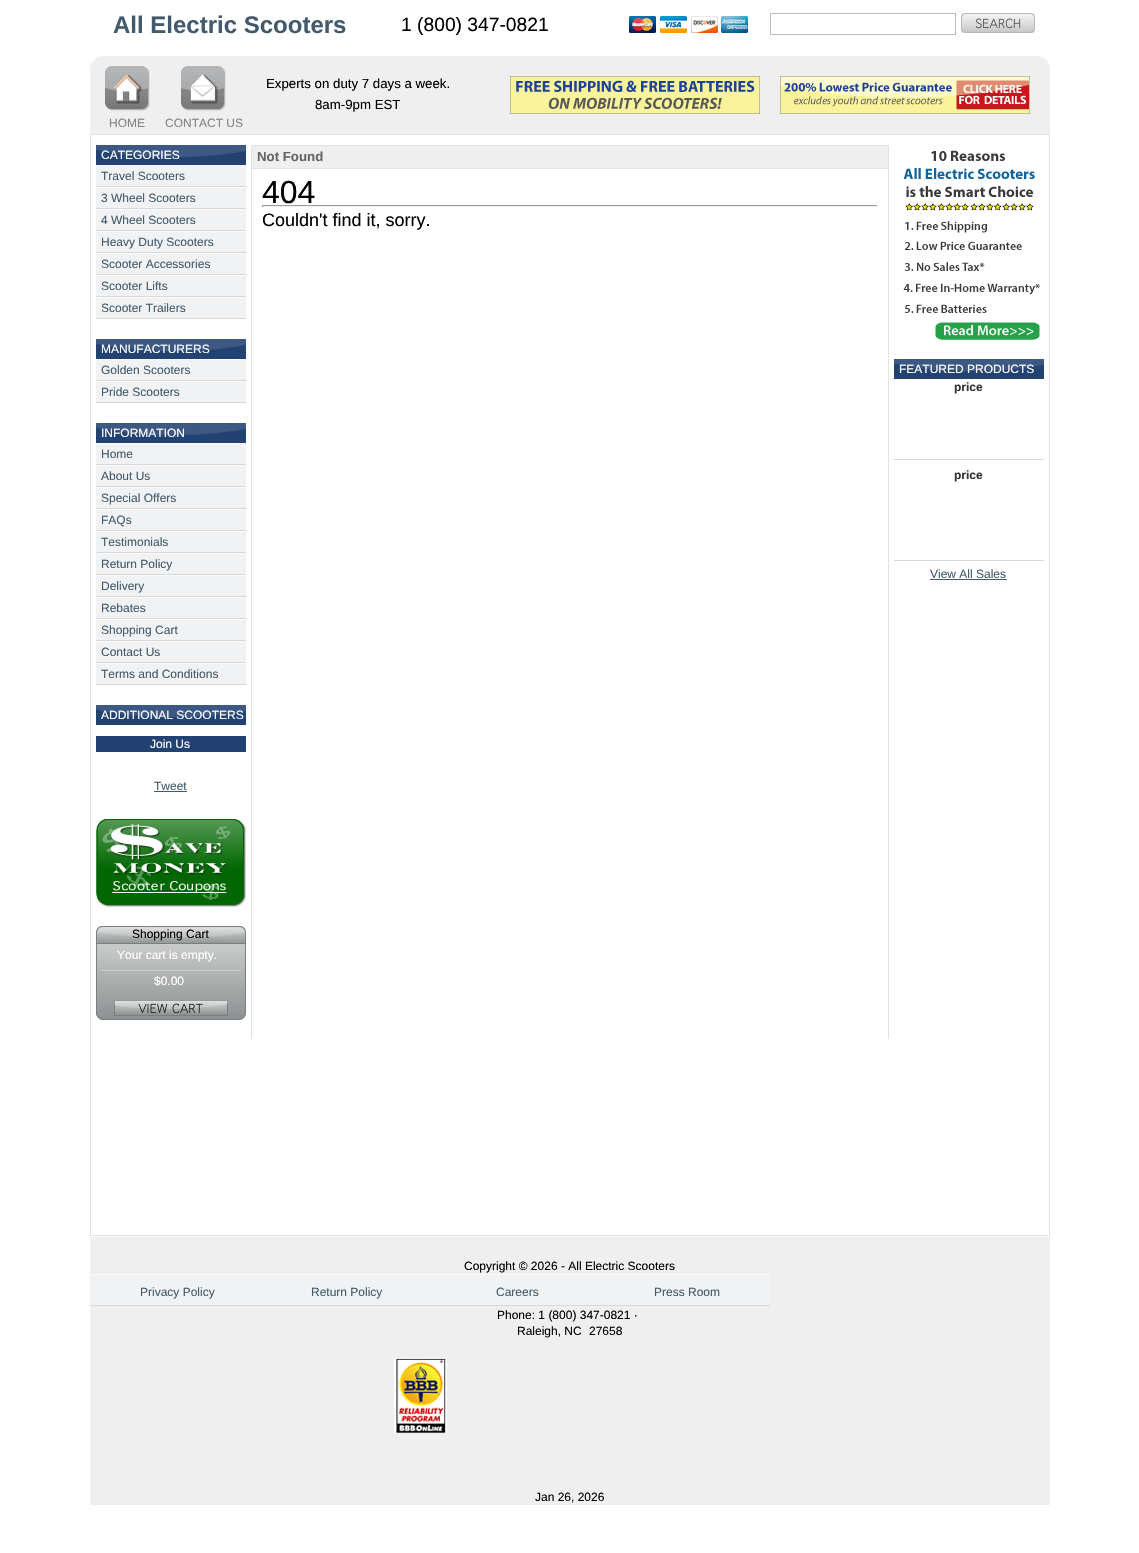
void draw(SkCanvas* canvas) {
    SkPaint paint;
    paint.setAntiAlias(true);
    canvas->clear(0xFFFFFFFF);
    SkFont font1(fontMgr->matchFamilyStyle("Liberation Sans", SkFontStyle::Bold()), 24);
    font1.setSubpixel(true);
    paint.setColor(0xFF425A6B);
    canvas->drawString("All Electric Scooters", 113, 33, font1, paint);
    SkFont font2(fontMgr->matchFamilyStyle("Liberation Sans", SkFontStyle::Normal()), 19.25f);
    font2.setSubpixel(true);
    paint.setColor(0xFF000000);
    canvas->drawString("1 (800) 347-0821", 401, 31, font2, paint);
    canvas->drawImageRect(SkImages::DeferredFromEncodedData(SkData::MakeFromFileName("img1.png")), SkRect::MakeXYWH(629, 16, 119, 17), SkSamplingOptions());
    paint.setStyle(SkPaint::kStroke_Style);
    paint.setStrokeWidth(1);
    paint.setColor(0xFFBDBDBD);
    canvas->drawRect(SkRect::MakeXYWH(770.5f, 13.5f, 185, 21), paint);
    canvas->drawImageRect(SkImages::DeferredFromEncodedData(SkData::MakeFromFileName("img2.png")), SkRect::MakeXYWH(961, 13, 74, 20), SkSamplingOptions());
    paint.setStyle(SkPaint::kFill_Style);
    paint.setColor(0xFFEFEFEF);
    canvas->drawRect(SkRect::MakeXYWH(90, 67, 960, 67), paint);
    canvas->drawImageRect(SkImages::DeferredFromEncodedData(SkData::MakeFromFileName("img3.png")), SkRect::MakeXYWH(90, 56, 960, 11), SkSamplingOptions());
    SkFont font3(fontMgr->matchFamilyStyle("Liberation Sans", SkFontStyle::Normal()), 13.25f);
    font3.setSubpixel(true);
    paint.setColor(0xFF000000);
    canvas->drawString("Experts on duty 7 days a week.", 266, 88, font3, paint);
    canvas->drawString("8am-9pm EST", 315, 109, font3, paint);
    canvas->drawImageRect(SkImages::DeferredFromEncodedData(SkData::MakeFromFileName("img4.png")), SkRect::MakeXYWH(510, 76, 250, 38), SkSamplingOptions());
    canvas->drawImageRect(SkImages::DeferredFromEncodedData(SkData::MakeFromFileName("img5.png")), SkRect::MakeXYWH(780, 76, 250, 38), SkSamplingOptions());
    canvas->drawImageRect(SkImages::DeferredFromEncodedData(SkData::MakeFromFileName("img6.png")), SkRect::MakeXYWH(105, 66, 45, 45), SkSamplingOptions());
    SkFont font4(fontMgr->matchFamilyStyle("Liberation Sans", SkFontStyle::Normal()), 12);
    font4.setSubpixel(true);
    paint.setColor(0xFF848484);
    canvas->drawString("HOME", 109, 127, font4, paint);
    canvas->drawImageRect(SkImages::DeferredFromEncodedData(SkData::MakeFromFileName("img7.png")), SkRect::MakeXYWH(181, 66, 45, 45), SkSamplingOptions());
    canvas->drawString("CONTACT US", 165, 127, font4, paint);
    paint.setStyle(SkPaint::kStroke_Style);
    paint.setColor(0xFFE2E2E2);
    canvas->drawRect(SkRect::MakeXYWH(90.5f, 134.5f, 959, 1101), paint);
    paint.setStyle(SkPaint::kFill_Style);
    paint.setColor(0xFF224272);
    canvas->drawRect(SkRect::MakeXYWH(96, 158, 150, 7), paint);
    canvas->drawImageRect(SkImages::DeferredFromEncodedData(SkData::MakeFromFileName("img8.png")), SkRect::MakeXYWH(96, 145, 150, 13), SkSamplingOptions());
    paint.setColor(0xFFFFFFFF);
    canvas->drawString("CATEGORIES", 101, 159, font4, paint);
    paint.setColor(0xFFF1F2F4);
    canvas->drawRect(SkRect::MakeXYWH(96, 166, 150, 20), paint);
    paint.setColor(0xFFFBFBFB);
    canvas->drawRect(SkRect::MakeXYWH(96, 165, 150, 1), paint);
    paint.setColor(0xFFD8D8D8);
    canvas->drawRect(SkRect::MakeXYWH(96, 186, 150, 1), paint);
    paint.setColor(0xFF425A6B);
    canvas->drawString("Travel Scooters", 101, 180, font4, paint);
    paint.setColor(0xFFF1F2F4);
    canvas->drawRect(SkRect::MakeXYWH(96, 188, 150, 20), paint);
    paint.setColor(0xFFFBFBFB);
    canvas->drawRect(SkRect::MakeXYWH(96, 187, 150, 1), paint);
    paint.setColor(0xFFD8D8D8);
    canvas->drawRect(SkRect::MakeXYWH(96, 208, 150, 1), paint);
    paint.setColor(0xFF425A6B);
    canvas->drawString("3 Wheel Scooters", 101, 202, font4, paint);
    paint.setColor(0xFFF1F2F4);
    canvas->drawRect(SkRect::MakeXYWH(96, 210, 150, 20), paint);
    paint.setColor(0xFFFBFBFB);
    canvas->drawRect(SkRect::MakeXYWH(96, 209, 150, 1), paint);
    paint.setColor(0xFFD8D8D8);
    canvas->drawRect(SkRect::MakeXYWH(96, 230, 150, 1), paint);
    paint.setColor(0xFF425A6B);
    canvas->drawString("4 Wheel Scooters", 101, 224, font4, paint);
    paint.setColor(0xFFF1F2F4);
    canvas->drawRect(SkRect::MakeXYWH(96, 232, 150, 20), paint);
    paint.setColor(0xFFFBFBFB);
    canvas->drawRect(SkRect::MakeXYWH(96, 231, 150, 1), paint);
    paint.setColor(0xFFD8D8D8);
    canvas->drawRect(SkRect::MakeXYWH(96, 252, 150, 1), paint);
    paint.setColor(0xFF425A6B);
    canvas->drawString("Heavy Duty Scooters", 101, 246, font4, paint);
    paint.setColor(0xFFF1F2F4);
    canvas->drawRect(SkRect::MakeXYWH(96, 254, 150, 20), paint);
    paint.setColor(0xFFFBFBFB);
    canvas->drawRect(SkRect::MakeXYWH(96, 253, 150, 1), paint);
    paint.setColor(0xFFD8D8D8);
    canvas->drawRect(SkRect::MakeXYWH(96, 274, 150, 1), paint);
    paint.setColor(0xFF425A6B);
    canvas->drawString("Scooter Accessories", 101, 268, font4, paint);
    paint.setColor(0xFFF1F2F4);
    canvas->drawRect(SkRect::MakeXYWH(96, 276, 150, 20), paint);
    paint.setColor(0xFFFBFBFB);
    canvas->drawRect(SkRect::MakeXYWH(96, 275, 150, 1), paint);
    paint.setColor(0xFFD8D8D8);
    canvas->drawRect(SkRect::MakeXYWH(96, 296, 150, 1), paint);
    paint.setColor(0xFF425A6B);
    canvas->drawString("Scooter Lifts", 101, 290, font4, paint);
    paint.setColor(0xFFF1F2F4);
    canvas->drawRect(SkRect::MakeXYWH(96, 298, 150, 20), paint);
    paint.setColor(0xFFFBFBFB);
    canvas->drawRect(SkRect::MakeXYWH(96, 297, 150, 1), paint);
    paint.setColor(0xFFD8D8D8);
    canvas->drawRect(SkRect::MakeXYWH(96, 318, 150, 1), paint);
    paint.setColor(0xFF425A6B);
    canvas->drawString("Scooter Trailers", 101, 312, font4, paint);
    paint.setColor(0xFF224272);
    canvas->drawRect(SkRect::MakeXYWH(96, 352, 150, 7), paint);
    canvas->drawImageRect(SkImages::DeferredFromEncodedData(SkData::MakeFromFileName("img8.png")), SkRect::MakeXYWH(96, 339, 150, 13), SkSamplingOptions());
    paint.setColor(0xFFFFFFFF);
    canvas->drawString("MANUFACTURERS", 101, 353, font4, paint);
    paint.setColor(0xFFF1F2F4);
    canvas->drawRect(SkRect::MakeXYWH(96, 360, 150, 20), paint);
    paint.setColor(0xFFFBFBFB);
    canvas->drawRect(SkRect::MakeXYWH(96, 359, 150, 1), paint);
    paint.setColor(0xFFD8D8D8);
    canvas->drawRect(SkRect::MakeXYWH(96, 380, 150, 1), paint);
    paint.setColor(0xFF425A6B);
    canvas->drawString("Golden Scooters", 101, 374, font4, paint);
    paint.setColor(0xFFF1F2F4);
    canvas->drawRect(SkRect::MakeXYWH(96, 382, 150, 20), paint);
    paint.setColor(0xFFFBFBFB);
    canvas->drawRect(SkRect::MakeXYWH(96, 381, 150, 1), paint);
    paint.setColor(0xFFD8D8D8);
    canvas->drawRect(SkRect::MakeXYWH(96, 402, 150, 1), paint);
    paint.setColor(0xFF425A6B);
    canvas->drawString("Pride Scooters", 101, 396, font4, paint);
    paint.setColor(0xFF224272);
    canvas->drawRect(SkRect::MakeXYWH(96, 436, 150, 7), paint);
    canvas->drawImageRect(SkImages::DeferredFromEncodedData(SkData::MakeFromFileName("img8.png")), SkRect::MakeXYWH(96, 423, 150, 13), SkSamplingOptions());
    paint.setColor(0xFFFFFFFF);
    canvas->drawString("INFORMATION", 101, 437, font4, paint);
    paint.setColor(0xFFF1F2F4);
    canvas->drawRect(SkRect::MakeXYWH(96, 444, 150, 20), paint);
    paint.setColor(0xFFFBFBFB);
    canvas->drawRect(SkRect::MakeXYWH(96, 443, 150, 1), paint);
    paint.setColor(0xFFD8D8D8);
    canvas->drawRect(SkRect::MakeXYWH(96, 464, 150, 1), paint);
    paint.setColor(0xFF425A6B);
    canvas->drawString("Home", 101, 458, font4, paint);
    paint.setColor(0xFFF1F2F4);
    canvas->drawRect(SkRect::MakeXYWH(96, 466, 150, 20), paint);
    paint.setColor(0xFFFBFBFB);
    canvas->drawRect(SkRect::MakeXYWH(96, 465, 150, 1), paint);
    paint.setColor(0xFFD8D8D8);
    canvas->drawRect(SkRect::MakeXYWH(96, 486, 150, 1), paint);
    paint.setColor(0xFF425A6B);
    canvas->drawString("About Us", 101, 480, font4, paint);
    paint.setColor(0xFFF1F2F4);
    canvas->drawRect(SkRect::MakeXYWH(96, 488, 150, 20), paint);
    paint.setColor(0xFFFBFBFB);
    canvas->drawRect(SkRect::MakeXYWH(96, 487, 150, 1), paint);
    paint.setColor(0xFFD8D8D8);
    canvas->drawRect(SkRect::MakeXYWH(96, 508, 150, 1), paint);
    paint.setColor(0xFF425A6B);
    canvas->drawString("Special Offers", 101, 502, font4, paint);
    paint.setColor(0xFFF1F2F4);
    canvas->drawRect(SkRect::MakeXYWH(96, 510, 150, 20), paint);
    paint.setColor(0xFFFBFBFB);
    canvas->drawRect(SkRect::MakeXYWH(96, 509, 150, 1), paint);
    paint.setColor(0xFFD8D8D8);
    canvas->drawRect(SkRect::MakeXYWH(96, 530, 150, 1), paint);
    paint.setColor(0xFF425A6B);
    canvas->drawString("FAQs", 101, 524, font4, paint);
    paint.setColor(0xFFF1F2F4);
    canvas->drawRect(SkRect::MakeXYWH(96, 532, 150, 20), paint);
    paint.setColor(0xFFFBFBFB);
    canvas->drawRect(SkRect::MakeXYWH(96, 531, 150, 1), paint);
    paint.setColor(0xFFD8D8D8);
    canvas->drawRect(SkRect::MakeXYWH(96, 552, 150, 1), paint);
    paint.setColor(0xFF425A6B);
    canvas->drawString("Testimonials", 101, 546, font4, paint);
    paint.setColor(0xFFF1F2F4);
    canvas->drawRect(SkRect::MakeXYWH(96, 554, 150, 20), paint);
    paint.setColor(0xFFFBFBFB);
    canvas->drawRect(SkRect::MakeXYWH(96, 553, 150, 1), paint);
    paint.setColor(0xFFD8D8D8);
    canvas->drawRect(SkRect::MakeXYWH(96, 574, 150, 1), paint);
    paint.setColor(0xFF425A6B);
    canvas->drawString("Return Policy", 101, 568, font4, paint);
    paint.setColor(0xFFF1F2F4);
    canvas->drawRect(SkRect::MakeXYWH(96, 576, 150, 20), paint);
    paint.setColor(0xFFFBFBFB);
    canvas->drawRect(SkRect::MakeXYWH(96, 575, 150, 1), paint);
    paint.setColor(0xFFD8D8D8);
    canvas->drawRect(SkRect::MakeXYWH(96, 596, 150, 1), paint);
    paint.setColor(0xFF425A6B);
    canvas->drawString("Delivery", 101, 590, font4, paint);
    paint.setColor(0xFFF1F2F4);
    canvas->drawRect(SkRect::MakeXYWH(96, 598, 150, 20), paint);
    paint.setColor(0xFFFBFBFB);
    canvas->drawRect(SkRect::MakeXYWH(96, 597, 150, 1), paint);
    paint.setColor(0xFFD8D8D8);
    canvas->drawRect(SkRect::MakeXYWH(96, 618, 150, 1), paint);
    paint.setColor(0xFF425A6B);
    canvas->drawString("Rebates", 101, 612, font4, paint);
    paint.setColor(0xFFF1F2F4);
    canvas->drawRect(SkRect::MakeXYWH(96, 620, 150, 20), paint);
    paint.setColor(0xFFFBFBFB);
    canvas->drawRect(SkRect::MakeXYWH(96, 619, 150, 1), paint);
    paint.setColor(0xFFD8D8D8);
    canvas->drawRect(SkRect::MakeXYWH(96, 640, 150, 1), paint);
    paint.setColor(0xFF425A6B);
    canvas->drawString("Shopping Cart", 101, 634, font4, paint);
    paint.setColor(0xFFF1F2F4);
    canvas->drawRect(SkRect::MakeXYWH(96, 642, 150, 20), paint);
    paint.setColor(0xFFFBFBFB);
    canvas->drawRect(SkRect::MakeXYWH(96, 641, 150, 1), paint);
    paint.setColor(0xFFD8D8D8);
    canvas->drawRect(SkRect::MakeXYWH(96, 662, 150, 1), paint);
    paint.setColor(0xFF425A6B);
    canvas->drawString("Contact Us", 101, 656, font4, paint);
    paint.setColor(0xFFF1F2F4);
    canvas->drawRect(SkRect::MakeXYWH(96, 664, 150, 20), paint);
    paint.setColor(0xFFFBFBFB);
    canvas->drawRect(SkRect::MakeXYWH(96, 663, 150, 1), paint);
    paint.setColor(0xFFD8D8D8);
    canvas->drawRect(SkRect::MakeXYWH(96, 684, 150, 1), paint);
    paint.setColor(0xFF425A6B);
    canvas->drawString("Terms and Conditions", 101, 678, font4, paint);
    paint.setColor(0xFF224272);
    canvas->drawRect(SkRect::MakeXYWH(96, 718, 150, 7), paint);
    canvas->drawImageRect(SkImages::DeferredFromEncodedData(SkData::MakeFromFileName("img8.png")), SkRect::MakeXYWH(96, 705, 150, 13), SkSamplingOptions());
    paint.setColor(0xFFFFFFFF);
    canvas->drawString("ADDITIONAL SCOOTERS", 101, 719, font4, paint);
    paint.setColor(0xFF224271);
    canvas->drawRect(SkRect::MakeXYWH(96, 736, 150, 16), paint);
    paint.setColor(0xFFFFFFFF);
    canvas->drawString("Join Us", 150, 748, font4, paint);
    paint.setColor(0xFF425A6B);
    canvas->drawString("Tweet", 154, 790, font4, paint);
    canvas->drawRect(SkRect::MakeXYWH(154, 791, 33, 1), paint);
    canvas->drawImageRect(SkImages::DeferredFromEncodedData(SkData::MakeFromFileName("img9.png")), SkRect::MakeXYWH(96, 819, 150, 88), SkSamplingOptions());
    canvas->drawImageRect(SkImages::DeferredFromEncodedData(SkData::MakeFromFileName("img10.png")), SkRect::MakeXYWH(96, 926, 150, 94), SkSamplingOptions());
    paint.setColor(0xFF000000);
    canvas->drawString("Shopping Cart", 132, 938, font4, paint);
    paint.setColor(0xFFFFFFFF);
    canvas->drawString("Your cart is empty.", 117, 959, font4, paint);
    paint.setColor(0xFFCCCCCC);
    canvas->drawRect(SkRect::MakeXYWH(101, 970, 140, 1), paint);
    paint.setColor(0xFFFFFFFF);
    canvas->drawString("$0.00", 154, 985, font4, paint);
    canvas->drawImageRect(SkImages::DeferredFromEncodedData(SkData::MakeFromFileName("img11.png")), SkRect::MakeXYWH(114, 1000, 114, 16), SkSamplingOptions());
    paint.setColor(0xFFEFEFEF);
    canvas->drawRect(SkRect::MakeXYWH(251.5f, 145.5f, 637, 23), paint);
    paint.setStyle(SkPaint::kStroke_Style);
    paint.setColor(0xFFE2E2E2);
    canvas->drawRect(SkRect::MakeXYWH(251.5f, 145.5f, 637, 23), paint);
    SkFont font5(fontMgr->matchFamilyStyle("Liberation Sans", SkFontStyle::Bold()), 13.25f);
    font5.setSubpixel(true);
    paint.setStyle(SkPaint::kFill_Style);
    paint.setColor(0xFF666666);
    canvas->drawString("Not Found", 257, 161, font5, paint);
    paint.setColor(0xFFE2E2E2);
    canvas->drawRect(SkRect::MakeXYWH(888, 169, 1, 870), paint);
    canvas->drawRect(SkRect::MakeXYWH(251, 169, 1, 870), paint);
    SkFont font6(fontMgr->matchFamilyStyle("Liberation Sans", SkFontStyle::Normal()), 32);
    font6.setSubpixel(true);
    paint.setColor(0xFF000000);
    canvas->drawString("404", 262, 203, font6, paint);
    paint.setColor(0xFF9F9F9F);
    canvas->drawRect(SkRect::MakeXYWH(262, 205, 616, 1), paint);
    paint.setColor(0xFFEEEEEE);
    canvas->drawRect(SkRect::MakeXYWH(877, 205, 1, 2), paint);
    canvas->drawRect(SkRect::MakeXYWH(262, 206, 616, 1), paint);
    paint.setColor(0xFF9F9F9F);
    canvas->drawRect(SkRect::MakeXYWH(262, 205, 1, 2), paint);
    SkFont font7(fontMgr->matchFamilyStyle("Liberation Sans", SkFontStyle::Normal()), 18);
    font7.setSubpixel(true);
    paint.setColor(0xFF000000);
    canvas->drawString("Couldn't find it, sorry.", 262, 226, font7, paint);
    canvas->drawImageRect(SkImages::DeferredFromEncodedData(SkData::MakeFromFileName("img12.png")), SkRect::MakeXYWH(903, 150, 137, 190), SkSamplingOptions());
    paint.setColor(0xFF224272);
    canvas->drawRect(SkRect::MakeXYWH(894, 372, 150, 7), paint);
    canvas->drawImageRect(SkImages::DeferredFromEncodedData(SkData::MakeFromFileName("img8.png")), SkRect::MakeXYWH(894, 359, 150, 13), SkSamplingOptions());
    paint.setColor(0xFFFFFFFF);
    canvas->drawString("FEATURED PRODUCTS", 899, 373, font4, paint);
    paint.setColor(0xFFD8D8D8);
    canvas->drawRect(SkRect::MakeXYWH(894, 459, 150, 1), paint);
    SkFont font8(fontMgr->matchFamilyStyle("Liberation Sans", SkFontStyle::Bold()), 12);
    font8.setSubpixel(true);
    paint.setColor(0xFF333333);
    canvas->drawString("price", 954, 391, font8, paint);
    paint.setColor(0xFFD8D8D8);
    canvas->drawRect(SkRect::MakeXYWH(894, 560, 150, 1), paint);
    paint.setColor(0xFF333333);
    canvas->drawString("price", 954, 479, font8, paint);
    paint.setColor(0xFF425A6B);
    canvas->drawString("View All Sales", 930, 578, font4, paint);
    canvas->drawRect(SkRect::MakeXYWH(930, 579, 77, 1), paint);
    paint.setColor(0xFFEFEFEF);
    canvas->drawRect(SkRect::MakeXYWH(90, 1237, 960, 268), paint);
    paint.setColor(0xFF000000);
    canvas->drawString("Copyright © 2026 - All Electric Scooters", 464, 1270, font4, paint);
    paint.setColor(0xFFF1F2F4);
    canvas->drawRect(SkRect::MakeXYWH(90, 1275, 680, 30), paint);
    paint.setColor(0xFFFBFBFB);
    canvas->drawRect(SkRect::MakeXYWH(90, 1274, 680, 1), paint);
    paint.setColor(0xFFD8D8D8);
    canvas->drawRect(SkRect::MakeXYWH(90, 1305, 680, 1), paint);
    paint.setColor(0xFF425A6B);
    canvas->drawString("Privacy Policy", 140, 1296, font4, paint);
    canvas->drawString("Return Policy", 311, 1296, font4, paint);
    canvas->drawString("Careers", 496, 1296, font4, paint);
    canvas->drawString("Press Room", 654, 1296, font4, paint);
    paint.setColor(0xFF000000);
    canvas->drawString("Phone: 1 (800) 347-0821 ·", 497, 1319, font4, paint);
    canvas->drawString("Raleigh, NC", 517, 1335, font4, paint);
    canvas->drawString("27658", 589, 1335, font4, paint);
    canvas->drawImageRect(SkImages::DeferredFromEncodedData(SkData::MakeFromFileName("img13.png")), SkRect::MakeXYWH(394, 1359, 53, 74), SkSamplingOptions());
    canvas->drawString("Jan 26, 2026", 535, 1501, font4, paint);
}
